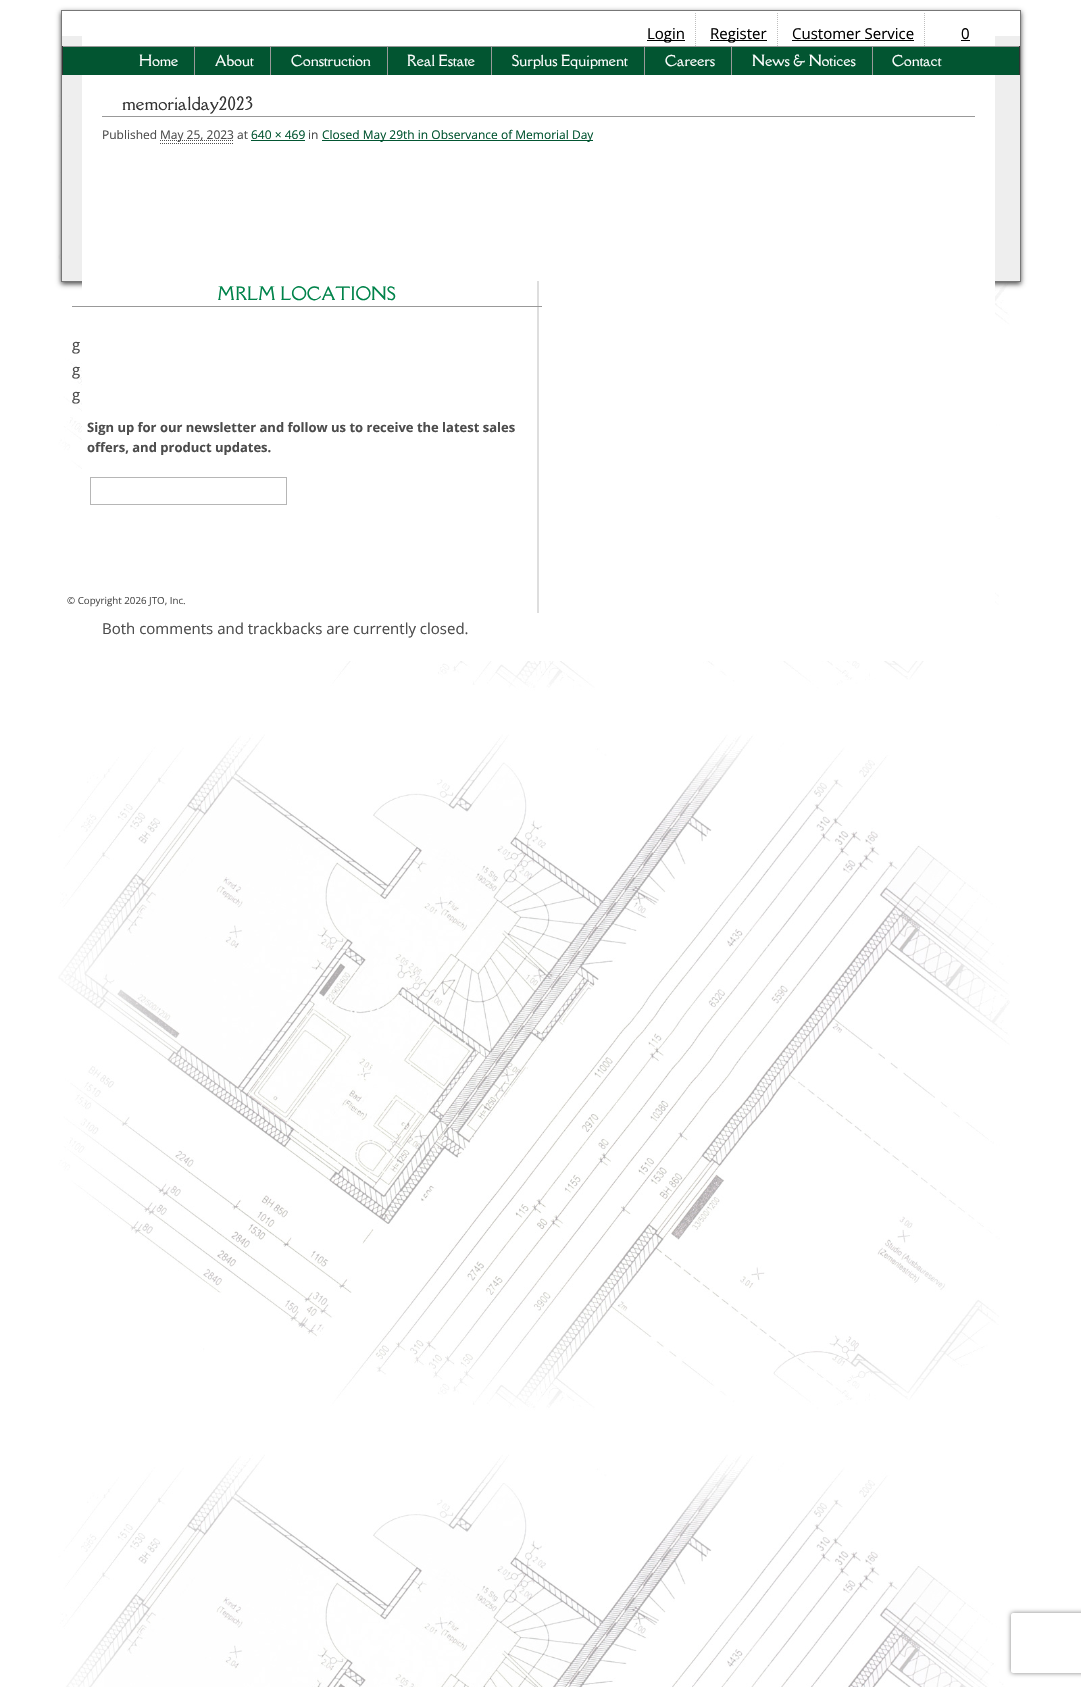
void draw(SkCanvas* canvas) {
    SkPaint paint;
    paint.setAntiAlias(true);
    canvas->clear(0xFFFFFFFF);
    canvas->drawImageRect(SkImages::DeferredFromEncodedData(SkData::MakeFromFileName("img1.png")), SkRect::MakeXYWH(58, 16, 952, 1671), SkSamplingOptions());
    paint.setColor(0xFF4A4A4A);
    paint.setMaskFilter(SkMaskFilter::MakeBlur(kNormal_SkBlurStyle, 2.5f));
    canvas->drawRect(SkRect::MakeXYWH(61, 12, 960, 272), paint);
    paint.setMaskFilter(nullptr);
    paint.setColor(0xFFFFFFFF);
    canvas->drawRect(SkRect::MakeXYWH(62, 11, 958, 25), paint);
    paint.setStyle(SkPaint::kStroke_Style);
    paint.setStrokeWidth(1);
    paint.setColor(0xFF777777);
    canvas->drawRect(SkRect::MakeXYWH(61.5f, 10.5f, 959, 271), paint);
    paint.setStyle(SkPaint::kFill_Style);
    paint.setColor(0xFFEEEEEE);
    canvas->drawRect(SkRect::MakeXYWH(62, 36, 958, 245), paint);
    paint.setColor(0xFFFFFFFF);
    canvas->drawRect(SkRect::MakeXYWH(82, 36, 913, 625), paint);
    paint.setColor(0xFF000000);
    canvas->drawRect(SkRect::MakeXYWH(647, 40, 38, 1), paint);
    SkFont font1(fontMgr->matchFamilyStyle("Open Sans", SkFontStyle::Normal()), 15);
    font1.setSubpixel(true);
    canvas->drawString("Login", 647, 39, font1, paint);
    paint.setStyle(SkPaint::kStroke_Style);
    paint.setColor(0xFFBFBFBF);
    paint.setPathEffect(SkDashPathEffect::Make({{1, 1}}, 0));
    canvas->drawPath(SkPathBuilder().moveTo(695.5f, 13).lineTo(695.5f, 53).detach(), paint);
    paint.setPathEffect(nullptr);
    paint.setStyle(SkPaint::kFill_Style);
    paint.setColor(0xFF000000);
    canvas->drawRect(SkRect::MakeXYWH(710, 40, 57, 1), paint);
    canvas->drawString("Register", 710, 39, font1, paint);
    paint.setStyle(SkPaint::kStroke_Style);
    paint.setColor(0xFFBFBFBF);
    paint.setPathEffect(SkDashPathEffect::Make({{1, 1}}, 0));
    canvas->drawPath(SkPathBuilder().moveTo(777.5f, 13).lineTo(777.5f, 53).detach(), paint);
    paint.setPathEffect(nullptr);
    paint.setStyle(SkPaint::kFill_Style);
    paint.setColor(0xFF000000);
    canvas->drawString("Customer Service", 792, 39, font1, paint);
    paint.setStyle(SkPaint::kStroke_Style);
    paint.setColor(0xFFBFBFBF);
    paint.setPathEffect(SkDashPathEffect::Make({{1, 1}}, 0));
    canvas->drawPath(SkPathBuilder().moveTo(924.5f, 13).lineTo(924.5f, 53).detach(), paint);
    paint.setPathEffect(nullptr);
    paint.setStyle(SkPaint::kFill_Style);
    paint.setColor(0xFF000000);
    canvas->drawRect(SkRect::MakeXYWH(792, 40, 122, 1), paint);
    canvas->drawString("0", 961, 39, font1, paint);
    canvas->drawRect(SkRect::MakeXYWH(961, 40, 9, 1), paint);
    paint.setColor(0xFF025531);
    canvas->drawRect(SkRect::MakeXYWH(63, 47, 956, 28), paint);
    paint.setColor(0xFF999999);
    canvas->drawRect(SkRect::MakeXYWH(62, 46, 958, 1), paint);
    paint.setColor(0xFF333333);
    canvas->drawRect(SkRect::MakeXYWH(1019, 46, 1, 29), paint);
    canvas->drawRect(SkRect::MakeXYWH(62, 46, 1, 29), paint);
    paint.setColor(0xFF999999);
    canvas->drawRect(SkRect::MakeXYWH(194, 47, 1, 28), paint);
    SkFont font2(fontMgr->matchFamilyStyle("Della Respira", SkFontStyle(500, SkFontStyle::kNormal_Width, SkFontStyle::kUpright_Slant)), 14);
    font2.setSubpixel(true);
    paint.setColor(0xFFFFFFFF);
    canvas->drawString("Home", 139, 66, font2, paint);
    paint.setColor(0xFF999999);
    canvas->drawRect(SkRect::MakeXYWH(270, 47, 1, 28), paint);
    paint.setColor(0xFFFFFFFF);
    canvas->drawString("About", 215, 66, font2, paint);
    paint.setColor(0xFF999999);
    canvas->drawRect(SkRect::MakeXYWH(387, 47, 1, 28), paint);
    paint.setColor(0xFFFFFFFF);
    canvas->drawString("Construction", 291, 66, font2, paint);
    paint.setColor(0xFF999999);
    canvas->drawRect(SkRect::MakeXYWH(491, 47, 1, 28), paint);
    paint.setColor(0xFFFFFFFF);
    canvas->drawString("Real Estate", 407, 66, font2, paint);
    paint.setColor(0xFF999999);
    canvas->drawRect(SkRect::MakeXYWH(644, 47, 1, 28), paint);
    paint.setColor(0xFFFFFFFF);
    canvas->drawString("Surplus Equipment", 512, 66, font2, paint);
    paint.setColor(0xFF999999);
    canvas->drawRect(SkRect::MakeXYWH(731, 47, 1, 28), paint);
    paint.setColor(0xFFFFFFFF);
    canvas->drawString("Careers", 665, 66, font2, paint);
    paint.setColor(0xFF999999);
    canvas->drawRect(SkRect::MakeXYWH(872, 47, 1, 28), paint);
    paint.setColor(0xFFFFFFFF);
    canvas->drawString("News & Notices", 752, 66, font2, paint);
    canvas->drawString("Contact", 892, 66, font2, paint);
    paint.setColor(0xFF999999);
    canvas->drawRect(SkRect::MakeXYWH(102, 116, 873, 1), paint);
    SkFont font3(fontMgr->matchFamilyStyle("Della Respira", SkFontStyle(500, SkFontStyle::kNormal_Width, SkFontStyle::kUpright_Slant)), 17);
    font3.setSubpixel(true);
    paint.setColor(0xFF333333);
    canvas->drawString("memorialday2023", 122, 110, font3, paint);
    SkFont font4(fontMgr->matchFamilyStyle("Open Sans", SkFontStyle::Normal()), 12);
    font4.setSubpixel(true);
    paint.setColor(0xFF4C4C4C);
    canvas->drawString("Published", 102, 139, font4, paint);
    paint.setStyle(SkPaint::kStroke_Style);
    paint.setPathEffect(SkDashPathEffect::Make({{1, 1}}, 0));
    canvas->drawPath(SkPathBuilder().moveTo(160, 140.5f).lineTo(234, 140.5f).detach(), paint);
    paint.setPathEffect(nullptr);
    paint.setStyle(SkPaint::kFill_Style);
    canvas->drawString("May 25, 2023 at", 160, 139, font4, paint);
    paint.setStyle(SkPaint::kStroke_Style);
    paint.setPathEffect(SkDashPathEffect::Make({{1, 1}}, 0));
    canvas->drawPath(SkPathBuilder().moveTo(160, 143.5f).lineTo(234, 143.5f).detach(), paint);
    paint.setPathEffect(nullptr);
    paint.setStyle(SkPaint::kFill_Style);
    paint.setColor(0xFF025531);
    canvas->drawString("640 × 469", 251, 139, font4, paint);
    canvas->drawRect(SkRect::MakeXYWH(251, 140, 54, 1), paint);
    paint.setColor(0xFF4C4C4C);
    canvas->drawString("in", 308, 139, font4, paint);
    paint.setColor(0xFF025531);
    canvas->drawRect(SkRect::MakeXYWH(322, 140, 271, 1), paint);
    canvas->drawString("Closed May 29th in Observance of Memorial Day", 322, 139, font4, paint);
    paint.setColor(0xFF4C4C4C);
    canvas->drawString("Both comments and trackbacks are currently closed.", 102, 634, font1, paint);
    paint.setColor(0xFFDEDEDE);
    canvas->drawRect(SkRect::MakeXYWH(537, 281, 2, 332), paint);
    paint.setColor(0xFF999999);
    canvas->drawRect(SkRect::MakeXYWH(72, 306, 470, 1), paint);
    paint.setColor(0xFF00834A);
    canvas->drawString("MRLM LOCATIONS", 217, 300, font3, paint);
    paint.setColor(0xFF4C4C4C);
    canvas->drawString("g", 72, 350, font1, paint);
    canvas->drawString("g", 72, 375, font1, paint);
    canvas->drawString("g", 72, 400, font1, paint);
    SkFont font5(fontMgr->matchFamilyStyle("Open Sans", SkFontStyle::Bold()), 13);
    font5.setSubpixel(true);
    canvas->drawString("Sign up for our newsletter and follow us to receive the latest sales", 87, 432, font5, paint);
    canvas->drawString("offers, and product updates.", 87, 452, font5, paint);
    paint.setStyle(SkPaint::kStroke_Style);
    paint.setColor(0xFFB6B6B6);
    canvas->drawRect(SkRect::MakeXYWH(90.5f, 477.5f, 196, 27), paint);
    SkFont font6(fontMgr->matchFamilyStyle("Open Sans", SkFontStyle::Normal()), 9.75f);
    font6.setSubpixel(true);
    paint.setStyle(SkPaint::kFill_Style);
    paint.setColor(0xFF4C4C4C);
    canvas->drawString("© Copyright 2026 JTO, Inc.", 67, 604, font6, paint);
    canvas->save();
    canvas->clipPath(SkPathBuilder(SkPathFillType::kEvenOdd).moveTo(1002, 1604).lineTo(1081, 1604).lineTo(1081, 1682).lineTo(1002, 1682).close().moveTo(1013, 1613).lineTo(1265, 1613).cubicTo(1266, 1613, 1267, 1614, 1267, 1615).lineTo(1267, 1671).cubicTo(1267, 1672, 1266, 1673, 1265, 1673).lineTo(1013, 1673).cubicTo(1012, 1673, 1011, 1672, 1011, 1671).lineTo(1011, 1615).cubicTo(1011, 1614, 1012, 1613, 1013, 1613).close().detach(), true);
    paint.setColor(0xFF808080);
    paint.setMaskFilter(SkMaskFilter::MakeBlur(kNormal_SkBlurStyle, 2.5f));
    canvas->drawRoundRect(SkRect::MakeXYWH(1011, 1613, 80, 60), 2, 2, paint);
    paint.setMaskFilter(nullptr);
    canvas->restore();
}
